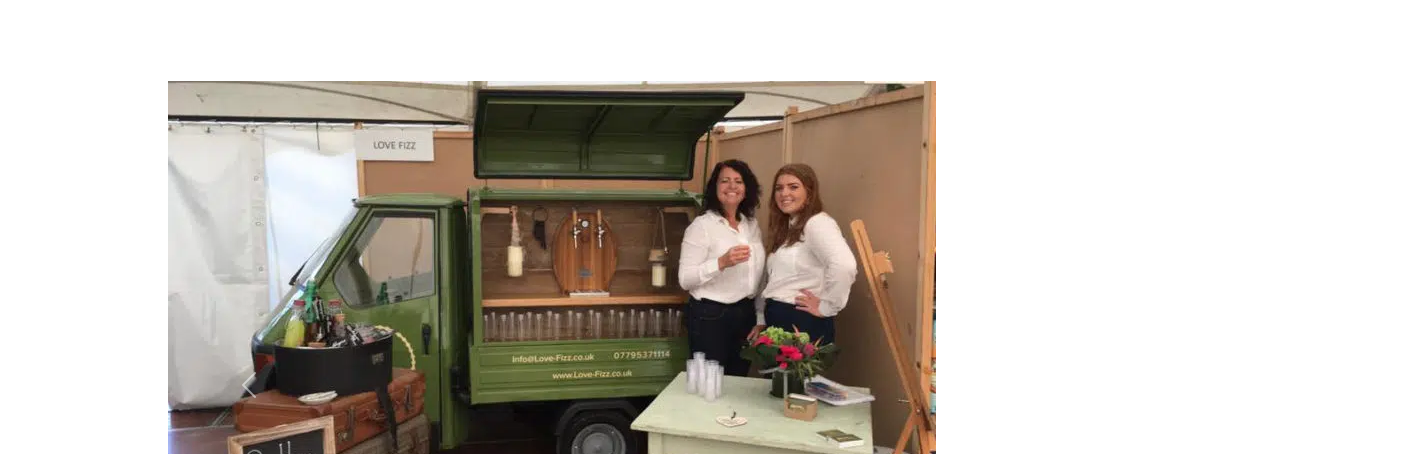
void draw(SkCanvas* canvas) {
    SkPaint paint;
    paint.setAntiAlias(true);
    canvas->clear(0xFFFFFFFF);
    canvas->drawImageRect(SkImages::DeferredFromEncodedData(SkData::MakeFromFileName("img1.png")), SkRect::MakeXYWH(168, 81, 768, 373), SkSamplingOptions());
    canvas->drawImageRect(SkImages::DeferredFromEncodedData(SkData::MakeFromFileName("img2.png")), SkRect::MakeXYWH(242, 372, 14, 26), SkSamplingOptions());
}
